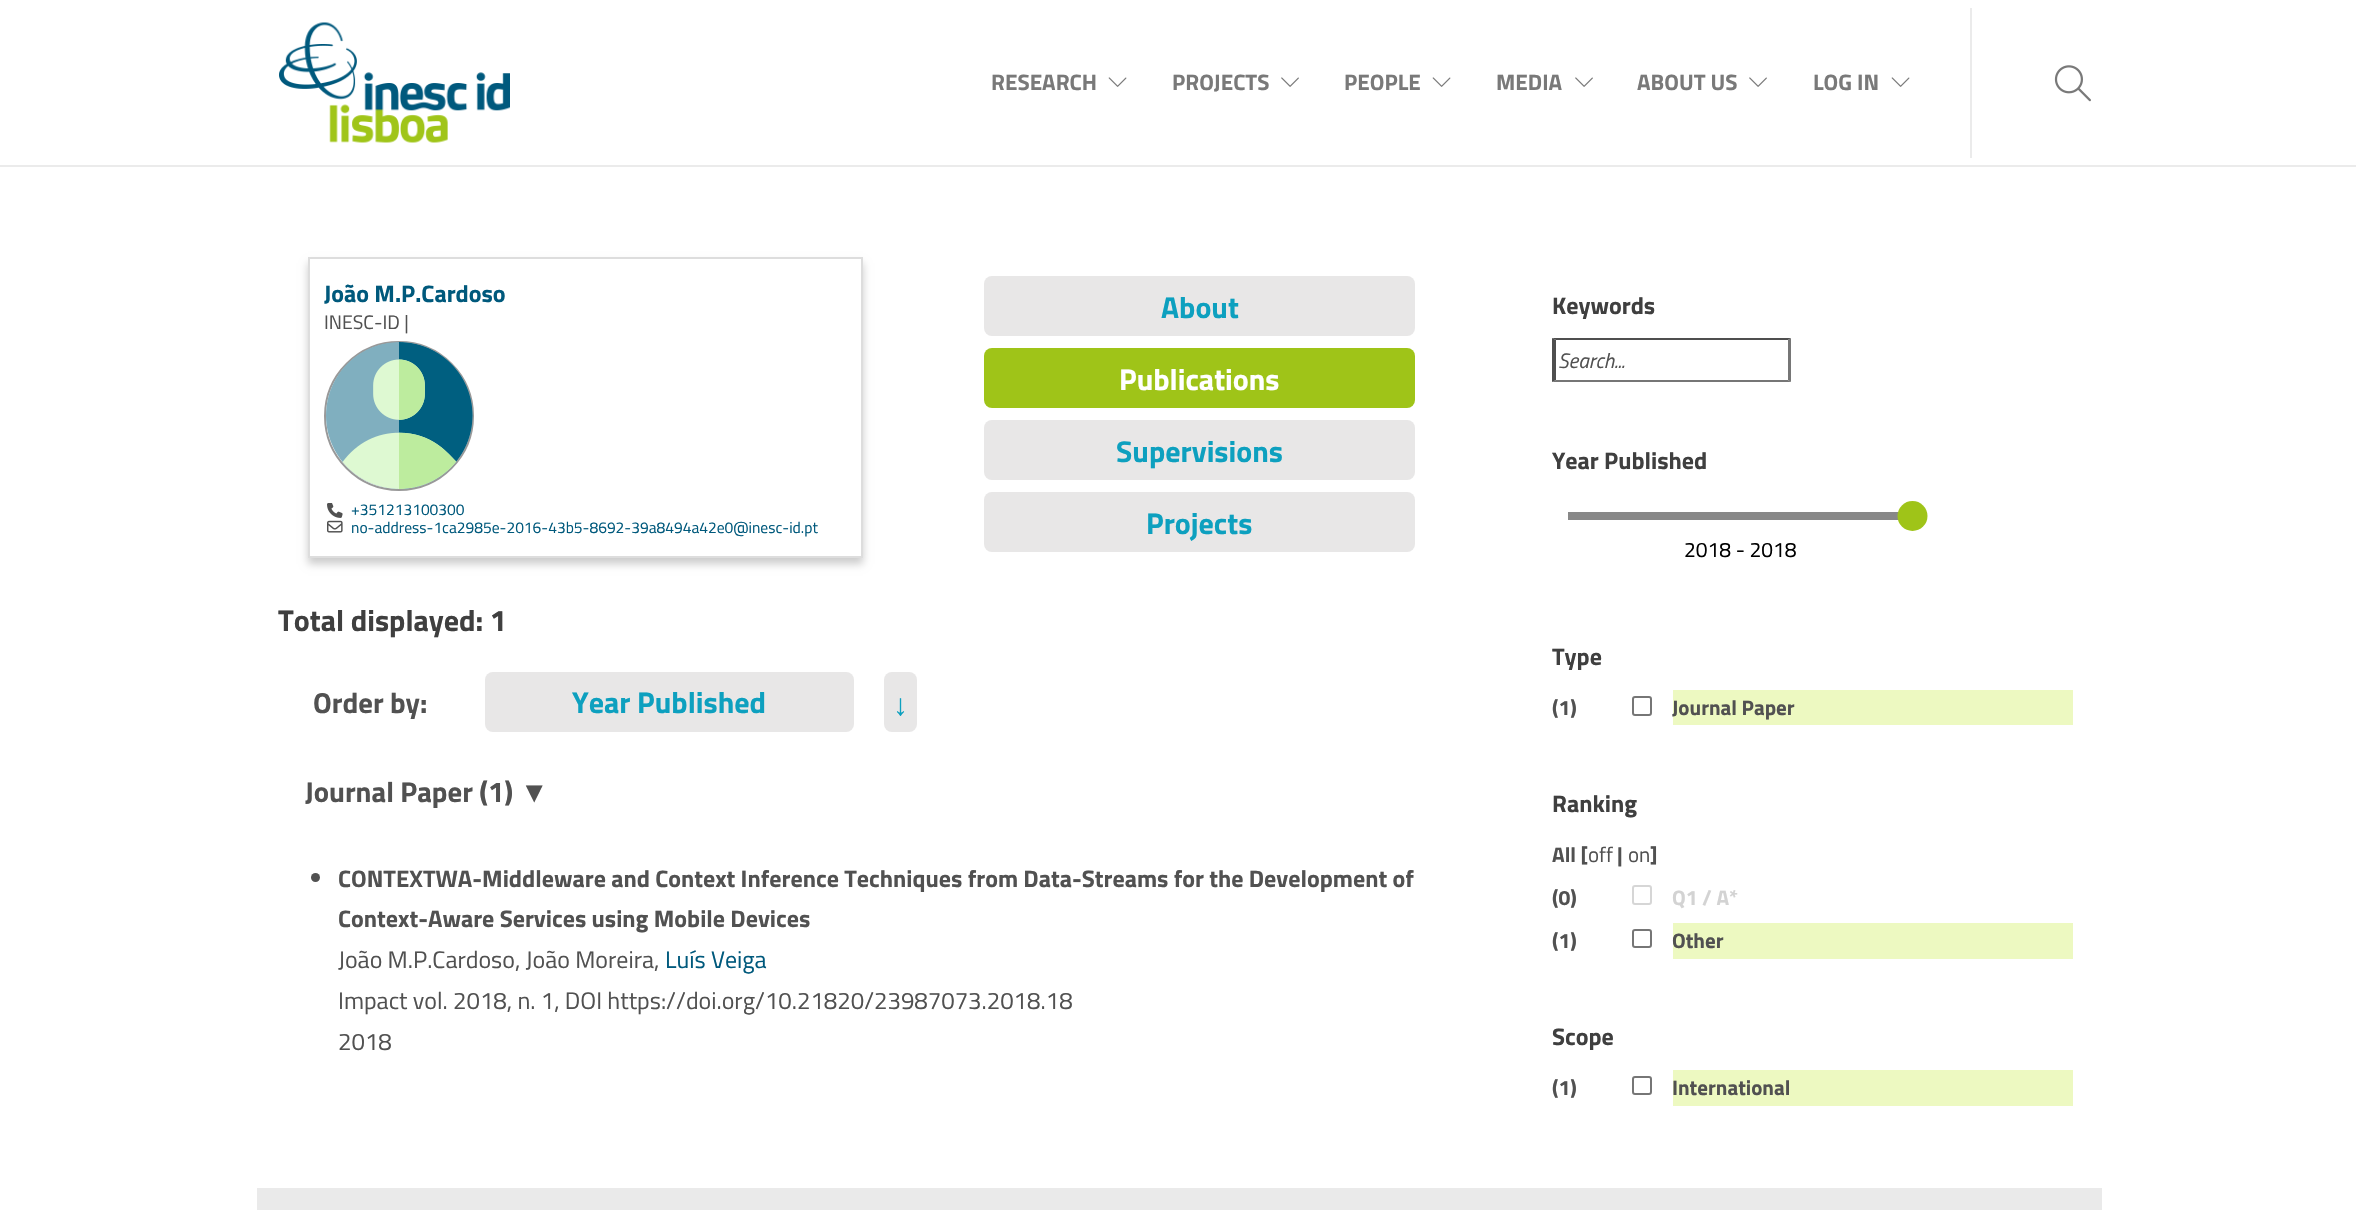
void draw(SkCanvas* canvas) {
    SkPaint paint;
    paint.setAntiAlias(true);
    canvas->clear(0xFFFFFFFF);
    paint.setColor(0xFFEBEBEB);
    canvas->drawRect(SkRect::MakeXYWH(0, 165, 2356, 2), paint);
    canvas->drawImageRect(SkImages::DeferredFromEncodedData(SkData::MakeFromFileName("img1.png")), SkRect::MakeXYWH(279, 22, 231, 121), SkSamplingOptions());
    SkFont font1(fontMgr->matchFamilyStyle("Titillium Web", SkFontStyle::Bold()), 22.5f);
    font1.setSubpixel(true);
    paint.setColor(0xFF797979);
    canvas->drawString("RESEARCH", 991, 90, font1, paint);
    canvas->drawImageRect(SkImages::DeferredFromEncodedData(SkData::MakeFromFileName("img2.png")), SkRect::MakeXYWH(1108, 77, 19, 10), SkSamplingOptions());
    canvas->drawString("PROJECTS", 1172, 90, font1, paint);
    canvas->drawImageRect(SkImages::DeferredFromEncodedData(SkData::MakeFromFileName("img3.png")), SkRect::MakeXYWH(1281, 77, 18, 10), SkSamplingOptions());
    canvas->drawString("PEOPLE", 1344, 90, font1, paint);
    canvas->drawImageRect(SkImages::DeferredFromEncodedData(SkData::MakeFromFileName("img2.png")), SkRect::MakeXYWH(1432, 77, 19, 10), SkSamplingOptions());
    canvas->drawString("MEDIA", 1496, 90, font1, paint);
    canvas->drawImageRect(SkImages::DeferredFromEncodedData(SkData::MakeFromFileName("img3.png")), SkRect::MakeXYWH(1575, 77, 18, 10), SkSamplingOptions());
    canvas->drawString("ABOUT US", 1637, 90, font1, paint);
    canvas->drawImageRect(SkImages::DeferredFromEncodedData(SkData::MakeFromFileName("img3.png")), SkRect::MakeXYWH(1749, 77, 18, 10), SkSamplingOptions());
    canvas->drawString("LOG IN", 1813, 90, font1, paint);
    canvas->drawImageRect(SkImages::DeferredFromEncodedData(SkData::MakeFromFileName("img2.png")), SkRect::MakeXYWH(1891, 77, 19, 10), SkSamplingOptions());
    paint.setColor(0xFFEBEBEB);
    canvas->drawRect(SkRect::MakeXYWH(1970, 8, 2, 150), paint);
    canvas->drawImageRect(SkImages::DeferredFromEncodedData(SkData::MakeFromFileName("img4.png")), SkRect::MakeXYWH(2054, 65, 37, 37), SkSamplingOptions());
    paint.setColor(0x33000000);
    paint.setMaskFilter(SkMaskFilter::MakeBlur(kNormal_SkBlurStyle, 4));
    canvas->drawRect(SkRect::MakeXYWH(308, 263, 555, 301), paint);
    paint.setMaskFilter(nullptr);
    paint.setColor(0xFFFFFFFF);
    canvas->drawRect(SkRect::MakeXYWH(309, 258, 553, 299), paint);
    paint.setStyle(SkPaint::kStroke_Style);
    paint.setStrokeWidth(2);
    paint.setColor(0xFFDDDDDD);
    canvas->drawRect(SkRect::MakeXYWH(309, 258, 553, 299), paint);
    SkFont font2(fontMgr->matchFamilyStyle("Titillium Web", SkFontStyle::Bold()), 24);
    font2.setSubpixel(true);
    paint.setStyle(SkPaint::kFill_Style);
    paint.setColor(0xFF00597C);
    canvas->drawString("João M.P.Cardoso", 324, 302, font2, paint);
    SkFont font3(fontMgr->matchFamilyStyle("Titillium Web", SkFontStyle::Normal()), 19.5f);
    font3.setSubpixel(true);
    paint.setColor(0xFF515151);
    canvas->drawString("INESC-ID |", 324, 329, font3, paint);
    paint.setStyle(SkPaint::kStroke_Style);
    paint.setColor(0xFF999999);
    canvas->drawCircle(399, 416, 74, paint);
    canvas->drawImageRect(SkImages::DeferredFromEncodedData(SkData::MakeFromFileName("img5.png")), SkRect::MakeXYWH(326, 342, 147, 147), SkSamplingOptions());
    canvas->drawImageRect(SkImages::DeferredFromEncodedData(SkData::MakeFromFileName("img6.png")), SkRect::MakeXYWH(327, 503, 16, 15), SkSamplingOptions());
    SkFont font4(fontMgr->matchFamilyStyle("Titillium Web", SkFontStyle::Normal()), 15.6f);
    font4.setSubpixel(true);
    paint.setStyle(SkPaint::kFill_Style);
    paint.setColor(0xFF00597C);
    canvas->drawString("+351213100300", 351, 515, font4, paint);
    canvas->drawImageRect(SkImages::DeferredFromEncodedData(SkData::MakeFromFileName("img7.png")), SkRect::MakeXYWH(327, 520, 16, 13), SkSamplingOptions());
    canvas->drawString("no-address-1ca2985e-2016-43b5-8692-39a8494a42e0@inesc-id.pt", 351, 533, font4, paint);
    paint.setColor(0xFFE8E7E7);
    canvas->drawRoundRect(SkRect::MakeXYWH(984, 276, 431, 60), 8, 8, paint);
    SkFont font5(fontMgr->matchFamilyStyle("Titillium Web", SkFontStyle::Bold()), 30);
    font5.setSubpixel(true);
    paint.setColor(0xFF0DA0BF);
    canvas->drawString("About", 1161, 318, font5, paint);
    paint.setColor(0xFF9FC418);
    canvas->drawRoundRect(SkRect::MakeXYWH(984, 348, 431, 60), 8, 8, paint);
    paint.setColor(0xFFFFFFFF);
    canvas->drawString("Publications", 1119, 390, font5, paint);
    paint.setColor(0xFFE8E7E7);
    canvas->drawRoundRect(SkRect::MakeXYWH(984, 420, 431, 60), 8, 8, paint);
    paint.setColor(0xFF0DA0BF);
    canvas->drawString("Supervisions", 1116, 462, font5, paint);
    paint.setColor(0xFFE8E7E7);
    canvas->drawRoundRect(SkRect::MakeXYWH(984, 492, 431, 60), 8, 8, paint);
    paint.setColor(0xFF0DA0BF);
    canvas->drawString("Projects", 1146, 534, font5, paint);
    paint.setColor(0xFF3F3F3F);
    canvas->drawString("Total displayed: 1", 278, 631, font5, paint);
    SkFont font6(fontMgr->matchFamilyStyle("Titillium Web", SkFontStyle::Bold()), 28.75f);
    font6.setSubpixel(true);
    paint.setColor(0xFF515151);
    canvas->drawString("Order by:", 313, 713, font6, paint);
    paint.setColor(0xFFE8E7E7);
    canvas->drawRoundRect(SkRect::MakeXYWH(485, 672, 369, 60), 8, 8, paint);
    paint.setColor(0xFF0DA0BF);
    canvas->drawString("Year Published", 572, 713, font5, paint);
    paint.setColor(0xFFE8E7E7);
    canvas->drawRoundRect(SkRect::MakeXYWH(884, 672, 33, 60), 8, 8, paint);
    SkFont font7(fontMgr->matchFamilyStyle("Liberation Serif", SkFontStyle::Bold()), 30);
    font7.setSubpixel(true);
    paint.setColor(0xFF0DA0BF);
    canvas->drawString("↓", 893, 715, font7, paint);
    paint.setColor(0xFF515151);
    canvas->drawString("Journal Paper (1)", 305, 802, font6, paint);
    SkFont font8(fontMgr->matchFamilyStyle("Liberation Serif", SkFontStyle::Bold()), 28.75f);
    font8.setSubpixel(true);
    canvas->drawString("▼", 520, 802, font8, paint);
    canvas->drawCircle(315.5f, 877.5f, 4.5f, paint);
    canvas->drawString("CONTEXTWA-Middleware and Context Inference Techniques from Data-Streams for the Development of", 338, 887, font2, paint);
    canvas->drawString("Context-Aware Services using Mobile Devices", 338, 927, font2, paint);
    SkFont font9(fontMgr->matchFamilyStyle("Titillium Web", SkFontStyle::Normal()), 24);
    font9.setSubpixel(true);
    canvas->drawString("João M.P.Cardoso, João Moreira,", 338, 968, font9, paint);
    paint.setColor(0xFF00597C);
    canvas->drawString("Luís Veiga", 665, 968, font9, paint);
    paint.setColor(0xFF515151);
    canvas->drawString("Impact vol. 2018, n. 1, DOI https://doi.org/10.21820/23987073.2018.18", 338, 1009, font9, paint);
    canvas->drawString("2018", 338, 1050, font9, paint);
    paint.setColor(0xFF3F3F3F);
    canvas->drawString("Keywords", 1552, 314, font2, paint);
    paint.setColor(0xFF4F4F4F);
    canvas->drawPath(SkPathBuilder().moveTo(1552, 338).lineTo(1791, 338).lineTo(1788, 340).lineTo(1556, 340).close().detach(), paint);
    paint.setColor(0xFF767676);
    canvas->drawPath(SkPathBuilder().moveTo(1791, 338).lineTo(1791, 382).lineTo(1788, 380).lineTo(1788, 340).close().detach(), paint);
    canvas->drawPath(SkPathBuilder().moveTo(1791, 382).lineTo(1552, 382).lineTo(1556, 380).lineTo(1788, 380).close().detach(), paint);
    paint.setColor(0xFF4F4F4F);
    canvas->drawPath(SkPathBuilder().moveTo(1552, 382).lineTo(1552, 338).lineTo(1556, 340).lineTo(1556, 380).close().detach(), paint);
    SkFont font10(fontMgr->matchFamilyStyle("Titillium Web", SkFontStyle::Italic()), 21);
    font10.setSubpixel(true);
    paint.setColor(0xFF515151);
    canvas->drawString("Search...", 1558, 368, font10, paint);
    paint.setColor(0xFF3F3F3F);
    canvas->drawString("Year Published", 1552, 469, font2, paint);
    SkFont font11(fontMgr->matchFamilyStyle("Titillium Web", SkFontStyle::Normal()), 21);
    font11.setSubpixel(true);
    paint.setColor(0xFF000000);
    canvas->drawString("2018 - 2018", 1684, 557, font11, paint);
    paint.setColor(0xFF888888);
    canvas->drawRect(SkRect::MakeXYWH(1568, 512, 331, 8), paint);
    paint.setColor(0xFF9FC418);
    canvas->drawCircle(1912.5f, 516, 15, paint);
    paint.setColor(0xFF3F3F3F);
    canvas->drawString("Type", 1552, 665, font2, paint);
    SkFont font12(fontMgr->matchFamilyStyle("Titillium Web", SkFontStyle::Bold()), 21);
    font12.setSubpixel(true);
    paint.setColor(0xFF515151);
    canvas->drawString("(1)", 1552, 715, font12, paint);
    paint.setStyle(SkPaint::kStroke_Style);
    paint.setColor(0xFF767676);
    canvas->drawRoundRect(SkRect::MakeXYWH(1633, 697, 18, 18), 2, 2, paint);
    paint.setStyle(SkPaint::kFill_Style);
    paint.setColor(0xFFEDF9C1);
    canvas->drawRect(SkRect::MakeXYWH(1673, 690, 400, 35), paint);
    paint.setColor(0xFF515151);
    canvas->drawString("Journal Paper", 1672, 715, font12, paint);
    paint.setColor(0xFF3F3F3F);
    canvas->drawString("Ranking", 1552, 812, font2, paint);
    paint.setColor(0xFF515151);
    canvas->drawString("All [", 1552, 862, font12, paint);
    canvas->drawString("off", 1588, 862, font11, paint);
    canvas->drawString("|", 1617, 862, font12, paint);
    canvas->drawString("on", 1628, 862, font11, paint);
    canvas->drawString("]", 1650, 862, font12, paint);
    canvas->drawString("(0)", 1552, 905, font12, paint);
    paint.setStyle(SkPaint::kStroke_Style);
    paint.setColor(0xFFD6D6D6);
    canvas->drawRoundRect(SkRect::MakeXYWH(1633, 886, 18, 18), 2, 2, paint);
    paint.setStyle(SkPaint::kFill_Style);
    paint.setColor(0xFFD3D3D3);
    canvas->drawString("Q1 / A*", 1672, 905, font12, paint);
    paint.setColor(0xFF515151);
    canvas->drawString("(1)", 1552, 948, font12, paint);
    paint.setStyle(SkPaint::kStroke_Style);
    paint.setColor(0xFF767676);
    canvas->drawRoundRect(SkRect::MakeXYWH(1633, 930, 18, 17), 2, 2, paint);
    paint.setStyle(SkPaint::kFill_Style);
    paint.setColor(0xFFEDF9C1);
    canvas->drawRect(SkRect::MakeXYWH(1673, 923, 400, 36), paint);
    paint.setColor(0xFF515151);
    canvas->drawString("Other", 1672, 948, font12, paint);
    paint.setColor(0xFF3F3F3F);
    canvas->drawString("Scope", 1552, 1045, font2, paint);
    paint.setColor(0xFF515151);
    canvas->drawString("(1)", 1552, 1095, font12, paint);
    paint.setStyle(SkPaint::kStroke_Style);
    paint.setColor(0xFF767676);
    canvas->drawRoundRect(SkRect::MakeXYWH(1633, 1077, 18, 17), 2, 2, paint);
    paint.setStyle(SkPaint::kFill_Style);
    paint.setColor(0xFFEDF9C1);
    canvas->drawRect(SkRect::MakeXYWH(1673, 1070, 400, 36), paint);
    paint.setColor(0xFF515151);
    canvas->drawString("International", 1672, 1095, font12, paint);
    paint.setColor(0xFFEAEAEA);
    canvas->drawRect(SkRect::MakeXYWH(257, 1188, 1845, 22), paint);
}
